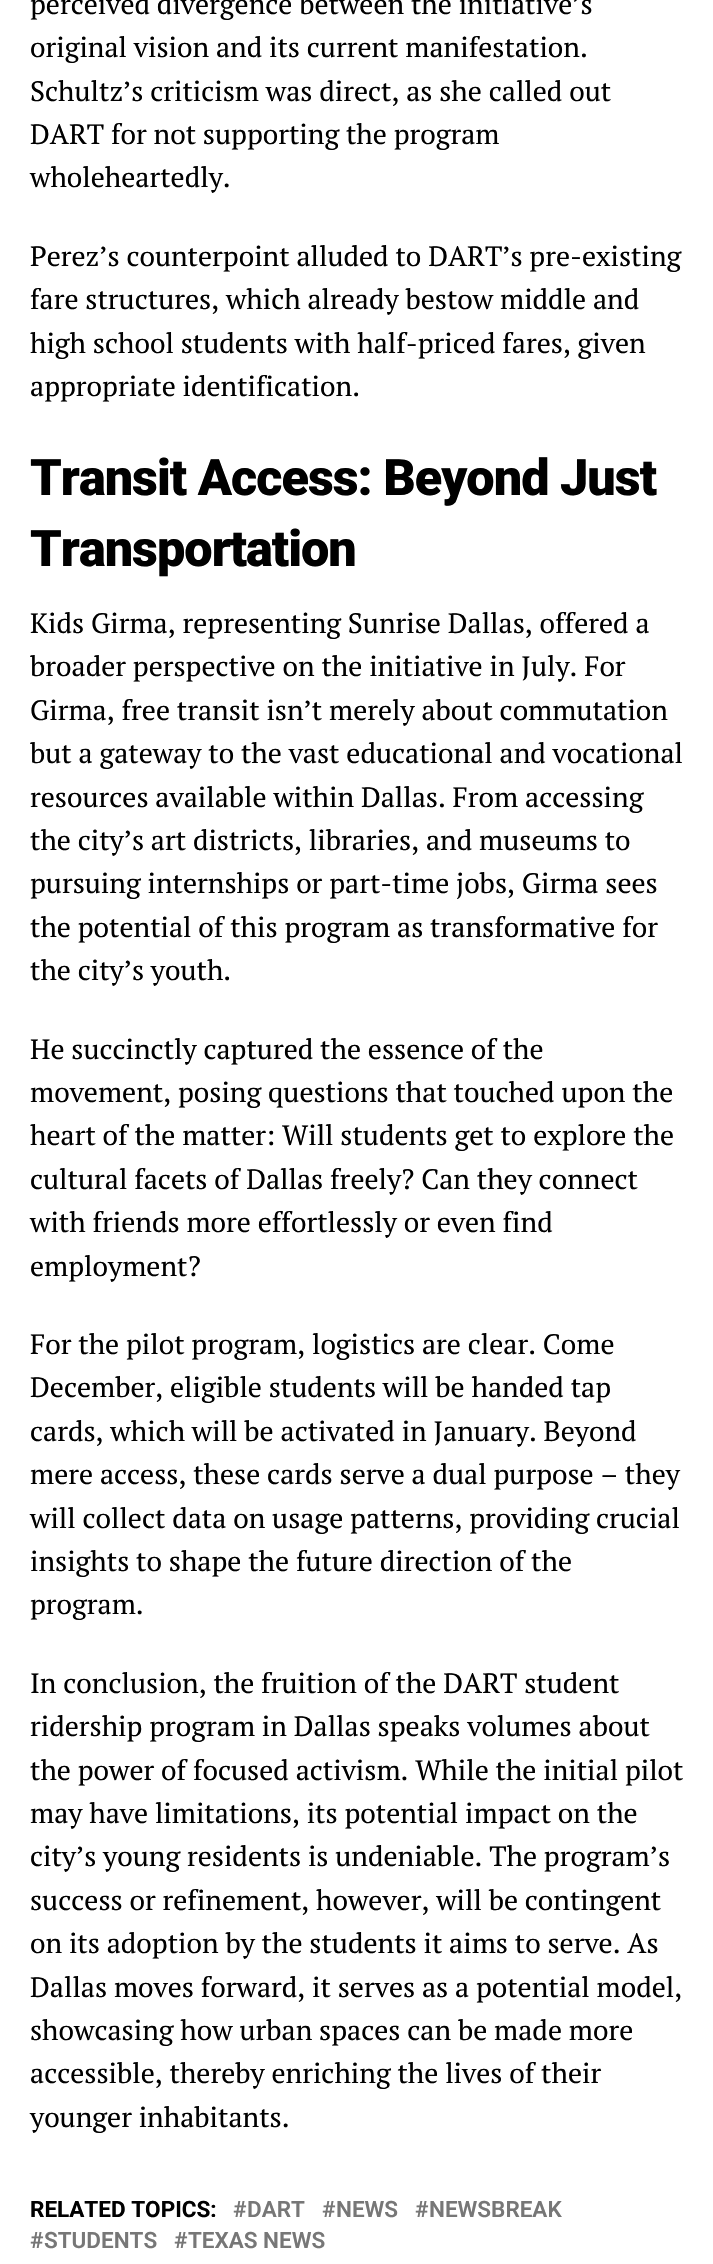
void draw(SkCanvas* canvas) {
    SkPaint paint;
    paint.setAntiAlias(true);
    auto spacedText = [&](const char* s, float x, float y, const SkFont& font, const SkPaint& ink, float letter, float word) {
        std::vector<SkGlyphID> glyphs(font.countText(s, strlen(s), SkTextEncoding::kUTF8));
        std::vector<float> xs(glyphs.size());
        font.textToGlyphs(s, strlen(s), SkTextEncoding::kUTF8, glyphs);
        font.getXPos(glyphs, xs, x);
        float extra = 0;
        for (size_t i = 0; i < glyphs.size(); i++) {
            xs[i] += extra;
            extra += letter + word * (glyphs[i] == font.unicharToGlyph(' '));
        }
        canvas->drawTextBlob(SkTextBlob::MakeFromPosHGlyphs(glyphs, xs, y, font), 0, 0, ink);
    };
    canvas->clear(0xFFFFFFFF);
    SkFont font1(fontMgr->matchFamilyStyle("PT Serif", SkFontStyle::Normal()), 28);
    font1.setSubpixel(true);
    paint.setColor(0xFF000000);
    canvas->drawString("perceived divergence between the initiative’s", 30, 14, font1, paint);
    canvas->drawString("original vision and its current manifestation.", 30, 57, font1, paint);
    canvas->drawString("Schultz’s criticism was direct, as she called out", 30, 101, font1, paint);
    canvas->drawString("DART for not supporting the program", 30, 144, font1, paint);
    canvas->drawString("wholeheartedly.", 30, 187, font1, paint);
    canvas->drawString("Perez’s counterpoint alluded to DART’s pre-existing", 30, 266, font1, paint);
    canvas->drawString("fare structures, which already bestow middle and", 30, 309, font1, paint);
    canvas->drawString("high school students with half-priced fares, given", 30, 353, font1, paint);
    canvas->drawString("appropriate identification.", 30, 396, font1, paint);
    SkFont font2(fontMgr->matchFamilyStyle("Roboto", SkFontStyle(900, SkFontStyle::kNormal_Width, SkFontStyle::kUpright_Slant)), 50.4f);
    font2.setSubpixel(true);
    spacedText("Transit Access: Beyond Just", 30, 495, font2, paint, -1, 0);
    spacedText("Transportation", 30, 566, font2, paint, -1, 0);
    canvas->drawString("Kids Girma, representing Sunrise Dallas, offered a", 30, 633, font1, paint);
    canvas->drawString("broader perspective on the initiative in July. For", 30, 676, font1, paint);
    canvas->drawString("Girma, free transit isn’t merely about commutation", 30, 720, font1, paint);
    canvas->drawString("but a gateway to the vast educational and vocational", 30, 763, font1, paint);
    canvas->drawString("resources available within Dallas. From accessing", 30, 807, font1, paint);
    canvas->drawString("the city’s art districts, libraries, and museums to", 30, 850, font1, paint);
    canvas->drawString("pursuing internships or part-time jobs, Girma sees", 30, 893, font1, paint);
    canvas->drawString("the potential of this program as transformative for", 30, 937, font1, paint);
    canvas->drawString("the city’s youth.", 30, 980, font1, paint);
    canvas->drawString("He succinctly captured the essence of the", 30, 1059, font1, paint);
    canvas->drawString("movement, posing questions that touched upon the", 30, 1102, font1, paint);
    canvas->drawString("heart of the matter: Will students get to explore the", 30, 1145, font1, paint);
    canvas->drawString("cultural facets of Dallas freely? Can they connect", 30, 1189, font1, paint);
    canvas->drawString("with friends more effortlessly or even find", 30, 1232, font1, paint);
    canvas->drawString("employment?", 30, 1276, font1, paint);
    canvas->drawString("For the pilot program, logistics are clear. Come", 30, 1354, font1, paint);
    canvas->drawString("December, eligible students will be handed tap", 30, 1397, font1, paint);
    canvas->drawString("cards, which will be activated in January. Beyond", 30, 1441, font1, paint);
    canvas->drawString("mere access, these cards serve a dual purpose – they", 30, 1484, font1, paint);
    canvas->drawString("will collect data on usage patterns, providing crucial", 30, 1528, font1, paint);
    canvas->drawString("insights to shape the future direction of the", 30, 1571, font1, paint);
    canvas->drawString("program.", 30, 1614, font1, paint);
    canvas->drawString("In conclusion, the fruition of the DART student", 30, 1693, font1, paint);
    canvas->drawString("ridership program in Dallas speaks volumes about", 30, 1736, font1, paint);
    canvas->drawString("the power of focused activism. While the initial pilot", 30, 1780, font1, paint);
    canvas->drawString("may have limitations, its potential impact on the", 30, 1823, font1, paint);
    canvas->drawString("city’s young residents is undeniable. The program’s", 30, 1866, font1, paint);
    canvas->drawString("success or refinement, however, will be contingent", 30, 1910, font1, paint);
    canvas->drawString("on its adoption by the students it aims to serve. As", 30, 1953, font1, paint);
    canvas->drawString("Dallas moves forward, it serves as a potential model,", 30, 1997, font1, paint);
    canvas->drawString("showcasing how urban spaces can be made more", 30, 2040, font1, paint);
    canvas->drawString("accessible, thereby enriching the lives of their", 30, 2083, font1, paint);
    canvas->drawString("younger inhabitants.", 30, 2127, font1, paint);
    SkFont font3(fontMgr->matchFamilyStyle("Roboto", SkFontStyle(600, SkFontStyle::kNormal_Width, SkFontStyle::kUpright_Slant)), 22.5f);
    font3.setSubpixel(true);
    paint.setColor(0xFF777777);
    canvas->drawString("#", 233, 2217, font3, paint);
    canvas->drawString("DART", 247, 2217, font3, paint);
    canvas->drawString("#", 322, 2217, font3, paint);
    canvas->drawString("NEWS", 336, 2217, font3, paint);
    canvas->drawString("#", 415, 2217, font3, paint);
    canvas->drawString("NEWSBREAK", 429, 2217, font3, paint);
    canvas->drawString("#", 30, 2248, font3, paint);
    canvas->drawString("STUDENTS", 44, 2248, font3, paint);
    canvas->drawString("#", 174, 2248, font3, paint);
    canvas->drawString("TEXAS NEWS", 188, 2248, font3, paint);
    SkFont font4(fontMgr->matchFamilyStyle("Roboto", SkFontStyle::Bold()), 22.5f);
    font4.setSubpixel(true);
    paint.setColor(0xFF000000);
    canvas->drawString("RELATED TOPICS:", 30, 2217, font4, paint);
}
